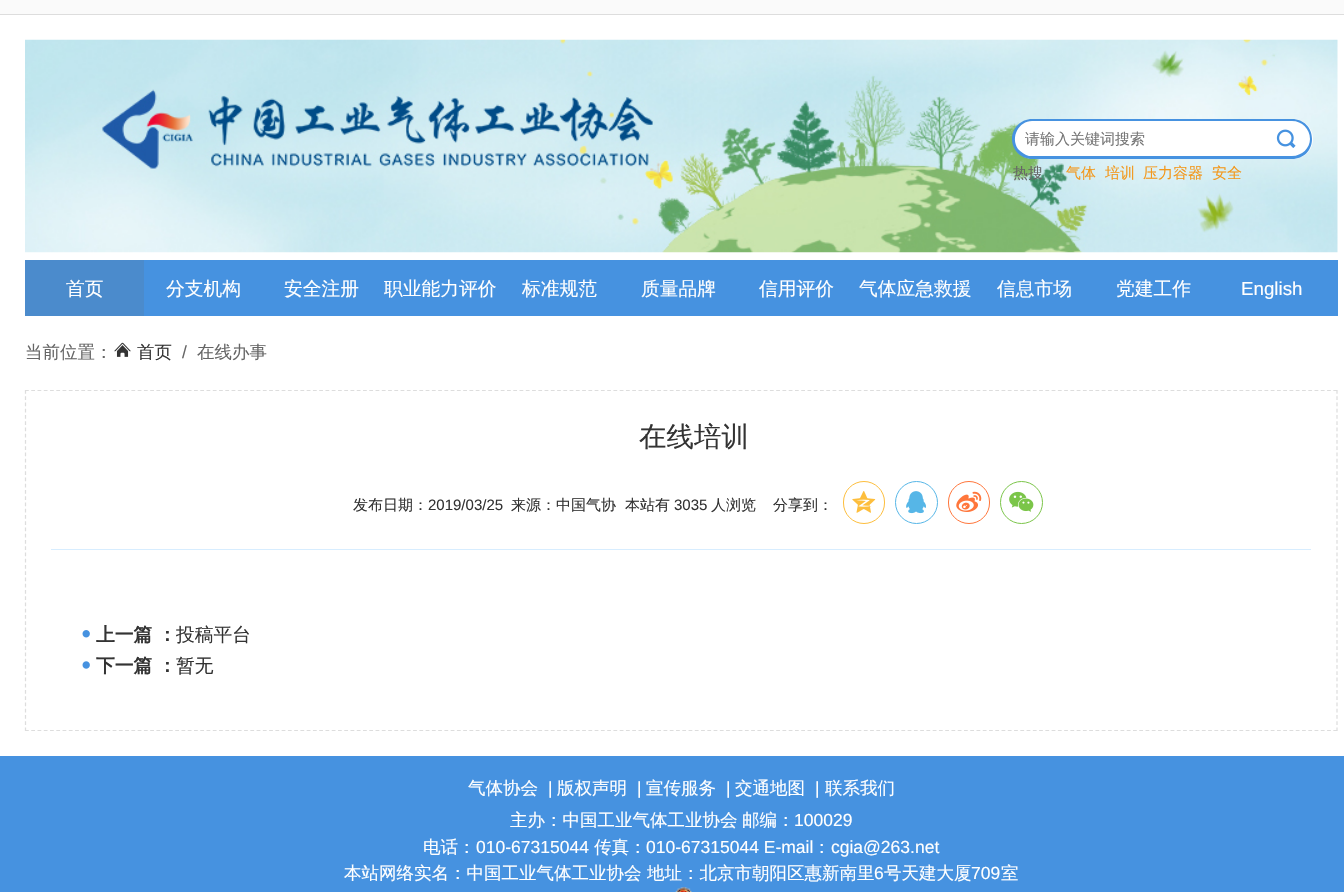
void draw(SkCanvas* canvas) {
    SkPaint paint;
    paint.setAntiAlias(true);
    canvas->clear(0xFFFAFAFA);
    paint.setColor(0xFFDDDDDD);
    canvas->drawRect(SkRect::MakeXYWH(0, 14, 1344, 1), paint);
    paint.setColor(0xFFFFFFFF);
    canvas->drawRect(SkRect::MakeXYWH(0, 15, 1344, 741), paint);
    canvas->drawImageRect(SkImages::DeferredFromEncodedData(SkData::MakeFromFileName("img1.png")), SkRect::MakeXYWH(25, 39, 1313, 214), SkSamplingOptions());
    canvas->drawPath(SkPathBuilder().moveTo(1033, 119).lineTo(1264, 119).lineTo(1264, 157).cubicTo(1264, 158, 1263, 159, 1262, 159).lineTo(1033, 159).cubicTo(1022, 159, 1013, 150, 1013, 139).cubicTo(1013, 128, 1022, 119, 1033, 119).close().detach(), paint);
    paint.setColor(0xFF4692E0);
    canvas->drawPath(SkPathBuilder(SkPathFillType::kEvenOdd).moveTo(1032, 119).lineTo(1264, 119).lineTo(1264, 157).cubicTo(1264, 158, 1263, 159, 1262, 159).lineTo(1032, 159).cubicTo(1021, 159, 1012, 150, 1012, 139).cubicTo(1012, 128, 1021, 119, 1032, 119).close().moveTo(1032, 121).lineTo(1264, 121).lineTo(1264, 156).lineTo(1029, 156).cubicTo(1025, 155, 1021, 152, 1018, 149).cubicTo(1010, 137, 1019, 121, 1032, 121).close().detach(), paint);
    SkFont font1(fontMgr->matchFamilyStyle("WenQuanYi Zen Hei", SkFontStyle(500, SkFontStyle::kNormal_Width, SkFontStyle::kUpright_Slant)), 15);
    font1.setSubpixel(true);
    paint.setColor(0xFF757575);
    canvas->drawString("请输入关键词搜索", 1025, 144, font1, paint);
    paint.setColor(0xFFFFFFFF);
    canvas->drawPath(SkPathBuilder().moveTo(1263, 119).lineTo(1293, 119).cubicTo(1304, 119, 1313, 128, 1313, 139).cubicTo(1313, 150, 1304, 159, 1293, 159).lineTo(1263, 159).close().detach(), paint);
    paint.setColor(0xFF4692E0);
    canvas->drawPath(SkPathBuilder(SkPathFillType::kEvenOdd).moveTo(1262, 119).lineTo(1292, 119).cubicTo(1304, 119, 1312, 128, 1312, 139).cubicTo(1312, 150, 1304, 159, 1292, 159).lineTo(1262, 159).close().moveTo(1262, 121).lineTo(1292, 121).cubicTo(1302, 121, 1310, 129, 1310, 139).cubicTo(1310, 148, 1302, 156, 1292, 156).lineTo(1262, 156).close().detach(), paint);
    canvas->drawImageRect(SkImages::DeferredFromEncodedData(SkData::MakeFromFileName("img2.png")), SkRect::MakeXYWH(1276, 129, 20, 19), SkSamplingOptions());
    paint.setColor(0xFF666666);
    canvas->drawString("热搜", 1013, 178, font1, paint);
    paint.setColor(0xFFF3981C);
    canvas->drawString("气体", 1066, 178, font1, paint);
    canvas->drawString("培训", 1105, 178, font1, paint);
    canvas->drawString("压力容器", 1143, 178, font1, paint);
    canvas->drawString("安全", 1212, 178, font1, paint);
    paint.setColor(0xFF4692E0);
    canvas->drawRect(SkRect::MakeXYWH(144, 260, 1194, 56), paint);
    paint.setColor(0xFF4B8BCC);
    canvas->drawRect(SkRect::MakeXYWH(25, 260, 119, 56), paint);
    SkFont font2(fontMgr->matchFamilyStyle("WenQuanYi Zen Hei", SkFontStyle(500, SkFontStyle::kNormal_Width, SkFontStyle::kUpright_Slant)), 18.75f);
    font2.setSubpixel(true);
    paint.setColor(0xFFFFFFFF);
    canvas->drawString("首页", 66, 295, font2, paint);
    canvas->drawString("分支机构", 166, 295, font2, paint);
    canvas->drawString("安全注册", 284, 295, font2, paint);
    canvas->drawString("职业能力评价", 384, 295, font2, paint);
    canvas->drawString("标准规范", 522, 295, font2, paint);
    canvas->drawString("质量品牌", 641, 295, font2, paint);
    canvas->drawString("信用评价", 759, 295, font2, paint);
    canvas->drawString("气体应急救援", 859, 295, font2, paint);
    canvas->drawString("信息市场", 997, 295, font2, paint);
    canvas->drawString("党建工作", 1116, 295, font2, paint);
    SkFont font3(fontMgr->matchFamilyStyle("Liberation Sans", SkFontStyle::Normal()), 18.75f);
    font3.setSubpixel(true);
    canvas->drawString("English", 1241, 295, font3, paint);
    SkFont font4(fontMgr->matchFamilyStyle("WenQuanYi Zen Hei", SkFontStyle(500, SkFontStyle::kNormal_Width, SkFontStyle::kUpright_Slant)), 17.5f);
    font4.setSubpixel(true);
    paint.setColor(0xFF666666);
    canvas->drawString("当前位置：", 25, 358, font4, paint);
    canvas->drawImageRect(SkImages::DeferredFromEncodedData(SkData::MakeFromFileName("img3.png")), SkRect::MakeXYWH(114, 342, 17, 15), SkSamplingOptions());
    paint.setColor(0xFF333333);
    canvas->drawString("首页", 137, 358, font4, paint);
    SkFont font5(fontMgr->matchFamilyStyle("Liberation Sans", SkFontStyle::Normal()), 17.5f);
    font5.setSubpixel(true);
    paint.setColor(0xFF666666);
    canvas->drawString("/", 182, 358, font5, paint);
    canvas->drawString("在线办事", 197, 358, font4, paint);
    paint.setStyle(SkPaint::kStroke_Style);
    paint.setStrokeWidth(1.2f);
    paint.setColor(0xFFDDDDDD);
    paint.setPathEffect(SkDashPathEffect::Make({{3.75f, 2.51f}}, 0));
    canvas->drawPath(SkPathBuilder().moveTo(25, 390.5f).lineTo(1337.5f, 390.5f).detach(), paint);
    paint.setPathEffect(nullptr);
    paint.setPathEffect(SkDashPathEffect::Make({{3.75f, 2.5f}}, 0));
    canvas->drawPath(SkPathBuilder().moveTo(1337, 390).lineTo(1337, 731).detach(), paint);
    paint.setPathEffect(nullptr);
    paint.setPathEffect(SkDashPathEffect::Make({{3.75f, 2.51f}}, 0));
    canvas->drawPath(SkPathBuilder().moveTo(25, 730.5f).lineTo(1337.5f, 730.5f).detach(), paint);
    paint.setPathEffect(nullptr);
    paint.setPathEffect(SkDashPathEffect::Make({{3.75f, 2.5f}}, 0));
    canvas->drawPath(SkPathBuilder().moveTo(25.5f, 390).lineTo(25.5f, 731).detach(), paint);
    paint.setPathEffect(nullptr);
    SkFont font6(fontMgr->matchFamilyStyle("WenQuanYi Zen Hei", SkFontStyle(500, SkFontStyle::kNormal_Width, SkFontStyle::kUpright_Slant)), 27.5f);
    font6.setSubpixel(true);
    paint.setStyle(SkPaint::kFill_Style);
    paint.setColor(0xFF333333);
    canvas->drawString("在线培训", 639, 446, font6, paint);
    canvas->drawString("发布日期：", 353, 510, font1, paint);
    SkFont font7(fontMgr->matchFamilyStyle("Liberation Sans", SkFontStyle::Normal()), 15);
    font7.setSubpixel(true);
    canvas->drawString("2019/03/25", 428, 510, font7, paint);
    canvas->drawString("来源：中国气协", 511, 510, font1, paint);
    canvas->drawString("本站有", 625, 510, font1, paint);
    canvas->drawString("3035", 674, 510, font7, paint);
    canvas->drawString("人浏览", 711, 510, font1, paint);
    canvas->drawString("分享到：", 773, 510, font1, paint);
    paint.setStyle(SkPaint::kStroke_Style);
    paint.setStrokeWidth(1);
    paint.setColor(0xFFFDBE3D);
    canvas->drawRoundRect(SkRect::MakeXYWH(843.5f, 481.5f, 41, 42), 20.5f, 20.5f, paint);
    canvas->drawImageRect(SkImages::DeferredFromEncodedData(SkData::MakeFromFileName("img4.png")), SkRect::MakeXYWH(852, 491, 24, 22), SkSamplingOptions());
    paint.setColor(0xFF56B6E7);
    canvas->drawCircle(916.5f, 502.5f, 21, paint);
    canvas->drawImageRect(SkImages::DeferredFromEncodedData(SkData::MakeFromFileName("img5.png")), SkRect::MakeXYWH(906, 491, 20, 23), SkSamplingOptions());
    paint.setColor(0xFFFF763B);
    canvas->drawRoundRect(SkRect::MakeXYWH(948.5f, 481.5f, 41, 42), 20.5f, 20.5f, paint);
    canvas->drawImageRect(SkImages::DeferredFromEncodedData(SkData::MakeFromFileName("img6.png")), SkRect::MakeXYWH(956, 491, 26, 21), SkSamplingOptions());
    paint.setColor(0xFF7BC549);
    canvas->drawCircle(1021.5f, 502.5f, 21, paint);
    canvas->drawImageRect(SkImages::DeferredFromEncodedData(SkData::MakeFromFileName("img7.png")), SkRect::MakeXYWH(1009, 491, 25, 21), SkSamplingOptions());
    paint.setStyle(SkPaint::kFill_Style);
    paint.setColor(0xFFD7EDFF);
    canvas->drawRect(SkRect::MakeXYWH(51, 549, 1260, 1), paint);
    canvas->drawImageRect(SkImages::DeferredFromEncodedData(SkData::MakeFromFileName("img8.png")), SkRect::MakeXYWH(82, 630, 8, 8), SkSamplingOptions());
    SkFont font8(fontMgr->matchFamilyStyle("WenQuanYi Zen Hei", SkFontStyle::Bold()), 18.75f);
    font8.setSubpixel(true);
    paint.setColor(0xFF333333);
    canvas->drawString("上一篇 ：", 96, 641, font8, paint);
    canvas->drawString("投稿平台", 176, 641, font2, paint);
    canvas->drawImageRect(SkImages::DeferredFromEncodedData(SkData::MakeFromFileName("img9.png")), SkRect::MakeXYWH(82, 661, 8, 8), SkSamplingOptions());
    canvas->drawString("下一篇 ：", 96, 672, font8, paint);
    canvas->drawString("暂无", 176, 672, font2, paint);
    paint.setColor(0xFF4692E0);
    canvas->drawRect(SkRect::MakeXYWH(0, 756, 1344, 136), paint);
    paint.setColor(0xFFFFFFFF);
    canvas->drawString("气体协会", 468, 794, font4, paint);
    canvas->drawString("|", 548, 794, font5, paint);
    canvas->drawString("版权声明", 557, 794, font4, paint);
    canvas->drawString("|", 637, 794, font5, paint);
    canvas->drawString("宣传服务", 646, 794, font4, paint);
    canvas->drawString("|", 726, 794, font5, paint);
    canvas->drawString("交通地图", 735, 794, font4, paint);
    canvas->drawString("|", 815, 794, font5, paint);
    canvas->drawString("联系我们", 825, 794, font4, paint);
    canvas->drawString("主办：中国工业气体工业协会", 510, 826, font4, paint);
    canvas->drawString("邮编：", 742, 826, font4, paint);
    canvas->drawString("100029", 794, 826, font5, paint);
    canvas->drawString("电话：", 423, 853, font4, paint);
    canvas->drawString("010-67315044", 476, 853, font5, paint);
    canvas->drawString("传真：", 594, 853, font4, paint);
    canvas->drawString("010-67315044 E-mail", 646, 853, font5, paint);
    canvas->drawString("：", 813, 853, font4, paint);
    canvas->drawString("cgia@263.net", 831, 853, font5, paint);
    canvas->drawString("本站网络实名：中国工业气体工业协会", 344, 879, font4, paint);
    canvas->drawString("地址：北京市朝阳区惠新南里", 647, 879, font4, paint);
    canvas->drawString("6", 874, 879, font5, paint);
    canvas->drawString("号天建大厦", 884, 879, font4, paint);
    canvas->drawString("709", 971, 879, font5, paint);
    canvas->drawString("室", 1001, 879, font4, paint);
    canvas->drawImageRect(SkImages::DeferredFromEncodedData(SkData::MakeFromFileName("img10.png")), SkRect::MakeXYWH(675, 887, 17, 5), SkSamplingOptions());
}
